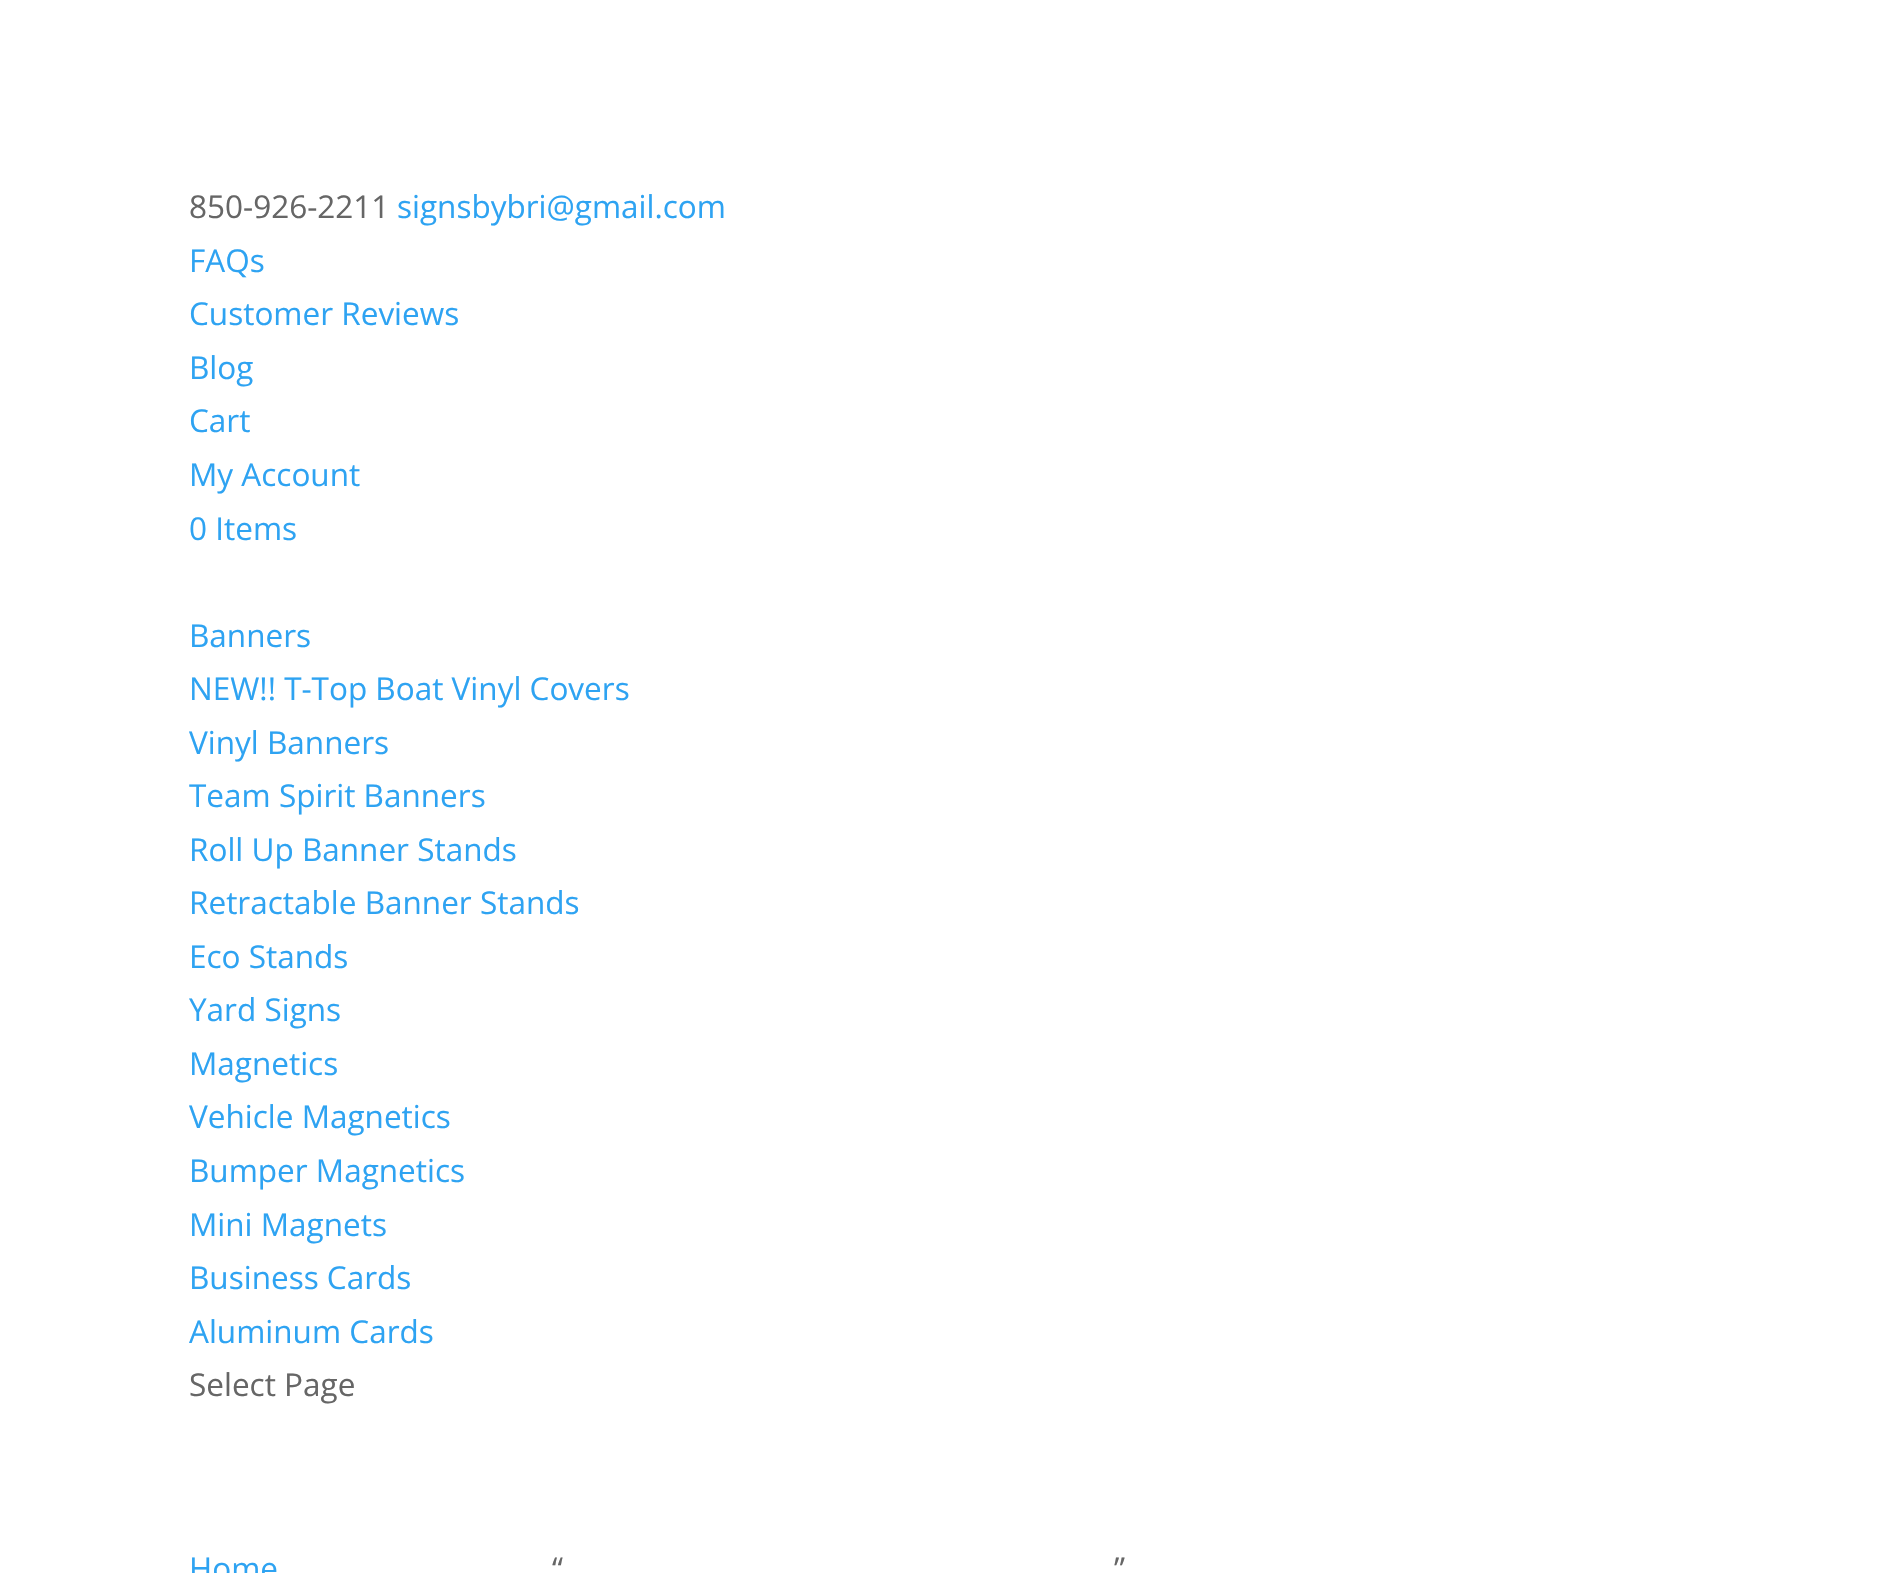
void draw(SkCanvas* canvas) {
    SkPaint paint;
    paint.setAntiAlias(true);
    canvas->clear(0xFFFFFFFF);
    SkFont font1(fontMgr->matchFamilyStyle("Open Sans", SkFontStyle::Normal()), 31.5f);
    font1.setSubpixel(true);
    paint.setColor(0xFF666666);
    canvas->drawString("850-926-2211", 189, 218, font1, paint);
    paint.setColor(0xFF2EA3F2);
    canvas->drawString("signsbybri@gmail.com", 397, 218, font1, paint);
    canvas->drawString("FAQs", 189, 272, font1, paint);
    canvas->drawString("Customer Reviews", 189, 325, font1, paint);
    canvas->drawString("Blog", 189, 379, font1, paint);
    canvas->drawString("Cart", 189, 432, font1, paint);
    canvas->drawString("My Account", 189, 486, font1, paint);
    canvas->drawString("0 Items", 189, 540, font1, paint);
    canvas->drawString("Banners", 189, 647, font1, paint);
    canvas->drawString("NEW!! T-Top Boat Vinyl Covers", 189, 700, font1, paint);
    canvas->drawString("Vinyl Banners", 189, 754, font1, paint);
    canvas->drawString("Team Spirit Banners", 189, 807, font1, paint);
    canvas->drawString("Roll Up Banner Stands", 189, 861, font1, paint);
    canvas->drawString("Retractable Banner Stands", 189, 914, font1, paint);
    canvas->drawString("Eco Stands", 189, 968, font1, paint);
    canvas->drawString("Yard Signs", 189, 1021, font1, paint);
    canvas->drawString("Magnetics", 189, 1075, font1, paint);
    canvas->drawString("Vehicle Magnetics", 189, 1128, font1, paint);
    canvas->drawString("Bumper Magnetics", 189, 1182, font1, paint);
    canvas->drawString("Mini Magnets", 189, 1236, font1, paint);
    canvas->drawString("Business Cards", 189, 1289, font1, paint);
    canvas->drawString("Aluminum Cards", 189, 1343, font1, paint);
    paint.setColor(0xFF666666);
    canvas->drawString("Select Page", 189, 1396, font1, paint);
    paint.setColor(0xFF2EA3F2);
    canvas->drawString("Home", 189, 1580, font1, paint);
    paint.setColor(0xFF666666);
    canvas->drawString("“", 552, 1580, font1, paint);
    canvas->drawString("”", 1114, 1580, font1, paint);
}
